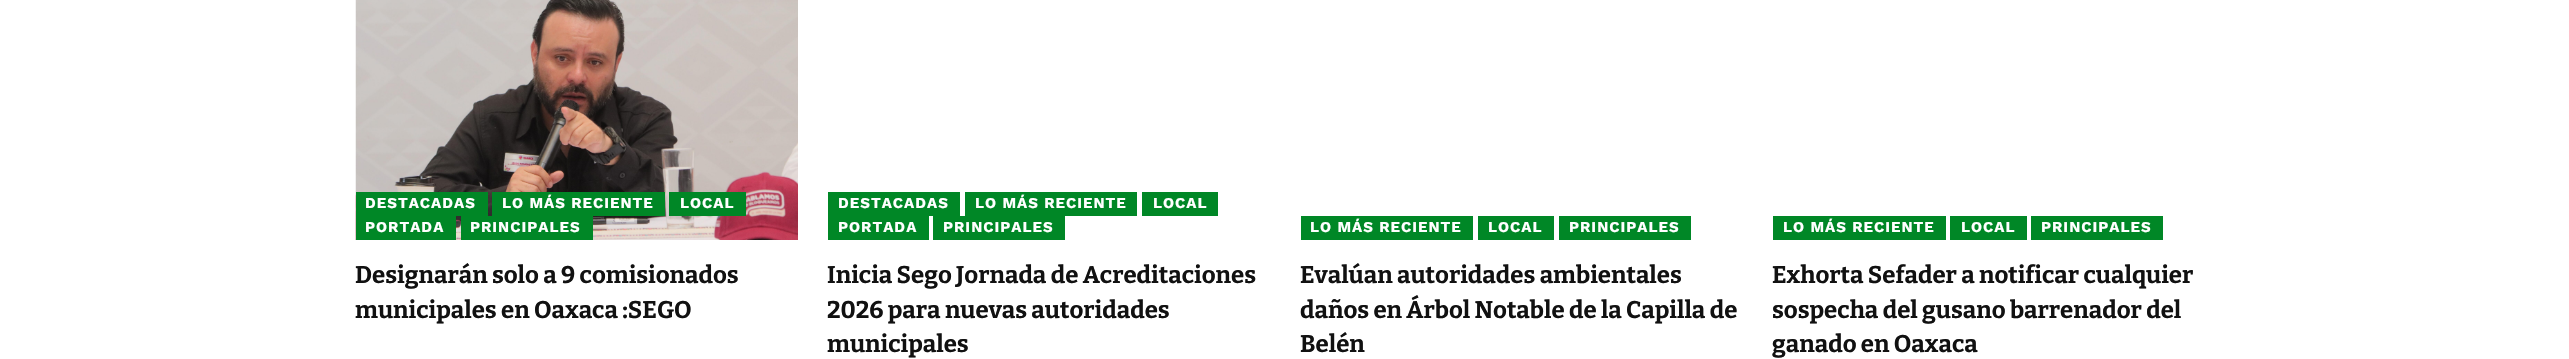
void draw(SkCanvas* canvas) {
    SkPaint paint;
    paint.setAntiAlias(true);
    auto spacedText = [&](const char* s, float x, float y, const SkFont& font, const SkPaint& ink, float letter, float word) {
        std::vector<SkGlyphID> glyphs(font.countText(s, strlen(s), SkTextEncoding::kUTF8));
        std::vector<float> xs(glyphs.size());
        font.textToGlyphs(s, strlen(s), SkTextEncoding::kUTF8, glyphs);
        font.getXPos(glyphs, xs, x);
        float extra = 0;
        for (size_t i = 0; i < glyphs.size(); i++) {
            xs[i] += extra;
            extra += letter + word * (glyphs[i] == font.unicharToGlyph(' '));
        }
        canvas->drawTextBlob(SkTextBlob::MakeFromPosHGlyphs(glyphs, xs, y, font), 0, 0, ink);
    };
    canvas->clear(0xFFFFFFFF);
    canvas->drawImageRect(SkImages::DeferredFromEncodedData(SkData::MakeFromFileName("img1.png")), SkRect::MakeXYWH(355, 0, 443, 240), SkSamplingOptions());
    paint.setColor(0xFF008726);
    canvas->drawRect(SkRect::MakeXYWH(356, 192, 132, 24), paint);
    SkFont font1(fontMgr->matchFamilyStyle("Work Sans", SkFontStyle::Bold()), 15);
    font1.setSubpixel(true);
    paint.setColor(0xFFFFFFFF);
    spacedText("DESTACADAS", 365, 208, font1, paint, 1, 0);
    paint.setColor(0xFF008726);
    canvas->drawRect(SkRect::MakeXYWH(492, 192, 173, 24), paint);
    paint.setColor(0xFFFFFFFF);
    spacedText("LO MÁS RECIENTE", 502, 208, font1, paint, 1, 0);
    paint.setColor(0xFF008726);
    canvas->drawRect(SkRect::MakeXYWH(669, 192, 77, 24), paint);
    paint.setColor(0xFFFFFFFF);
    spacedText("LOCAL", 680, 208, font1, paint, 1, 0);
    paint.setColor(0xFF008726);
    canvas->drawRect(SkRect::MakeXYWH(356, 216, 100, 24), paint);
    paint.setColor(0xFFFFFFFF);
    spacedText("PORTADA", 365, 232, font1, paint, 1, 0);
    paint.setColor(0xFF008726);
    canvas->drawRect(SkRect::MakeXYWH(461, 216, 132, 24), paint);
    paint.setColor(0xFFFFFFFF);
    spacedText("PRINCIPALES", 470, 232, font1, paint, 1, 0);
    SkFont font2(fontMgr->matchFamilyStyle("Bitter", SkFontStyle::Bold()), 24);
    font2.setSubpixel(true);
    paint.setColor(0xFF111111);
    canvas->drawString("Designarán solo a 9 comisionados", 355, 283, font2, paint);
    canvas->drawString("municipales en Oaxaca :SEGO", 355, 318, font2, paint);
    paint.setColor(0xFF008726);
    canvas->drawRect(SkRect::MakeXYWH(828, 192, 132, 24), paint);
    paint.setColor(0xFFFFFFFF);
    spacedText("DESTACADAS", 838, 208, font1, paint, 1, 0);
    paint.setColor(0xFF008726);
    canvas->drawRect(SkRect::MakeXYWH(965, 192, 172, 24), paint);
    paint.setColor(0xFFFFFFFF);
    spacedText("LO MÁS RECIENTE", 975, 208, font1, paint, 1, 0);
    paint.setColor(0xFF008726);
    canvas->drawRect(SkRect::MakeXYWH(1142, 192, 76, 24), paint);
    paint.setColor(0xFFFFFFFF);
    spacedText("LOCAL", 1153, 208, font1, paint, 1, 0);
    paint.setColor(0xFF008726);
    canvas->drawRect(SkRect::MakeXYWH(828, 216, 101, 24), paint);
    paint.setColor(0xFFFFFFFF);
    spacedText("PORTADA", 838, 232, font1, paint, 1, 0);
    paint.setColor(0xFF008726);
    canvas->drawRect(SkRect::MakeXYWH(933, 216, 132, 24), paint);
    paint.setColor(0xFFFFFFFF);
    spacedText("PRINCIPALES", 943, 232, font1, paint, 1, 0);
    paint.setColor(0xFF111111);
    canvas->drawString("Inicia Sego Jornada de Acreditaciones", 827, 283, font2, paint);
    canvas->drawString("2026 para nuevas autoridades", 827, 318, font2, paint);
    canvas->drawString("municipales", 827, 352, font2, paint);
    paint.setColor(0xFF008726);
    canvas->drawRect(SkRect::MakeXYWH(1301, 216, 172, 24), paint);
    paint.setColor(0xFFFFFFFF);
    spacedText("LO MÁS RECIENTE", 1310, 232, font1, paint, 1, 0);
    paint.setColor(0xFF008726);
    canvas->drawRect(SkRect::MakeXYWH(1478, 216, 76, 24), paint);
    paint.setColor(0xFFFFFFFF);
    spacedText("LOCAL", 1488, 232, font1, paint, 1, 0);
    paint.setColor(0xFF008726);
    canvas->drawRect(SkRect::MakeXYWH(1559, 216, 132, 24), paint);
    paint.setColor(0xFFFFFFFF);
    spacedText("PRINCIPALES", 1569, 232, font1, paint, 1, 0);
    paint.setColor(0xFF111111);
    canvas->drawString("Evalúan autoridades ambientales", 1300, 283, font2, paint);
    canvas->drawString("daños en Árbol Notable de la Capilla de", 1300, 318, font2, paint);
    canvas->drawString("Belén", 1300, 352, font2, paint);
    paint.setColor(0xFF008726);
    canvas->drawRect(SkRect::MakeXYWH(1773, 216, 173, 24), paint);
    paint.setColor(0xFFFFFFFF);
    spacedText("LO MÁS RECIENTE", 1783, 232, font1, paint, 1, 0);
    paint.setColor(0xFF008726);
    canvas->drawRect(SkRect::MakeXYWH(1950, 216, 77, 24), paint);
    paint.setColor(0xFFFFFFFF);
    spacedText("LOCAL", 1961, 232, font1, paint, 1, 0);
    paint.setColor(0xFF008726);
    canvas->drawRect(SkRect::MakeXYWH(2031, 216, 132, 24), paint);
    paint.setColor(0xFFFFFFFF);
    spacedText("PRINCIPALES", 2041, 232, font1, paint, 1, 0);
    paint.setColor(0xFF111111);
    canvas->drawString("Exhorta Sefader a notificar cualquier", 1772, 283, font2, paint);
    canvas->drawString("sospecha del gusano barrenador del", 1772, 318, font2, paint);
    canvas->drawString("ganado en Oaxaca", 1772, 352, font2, paint);
}
